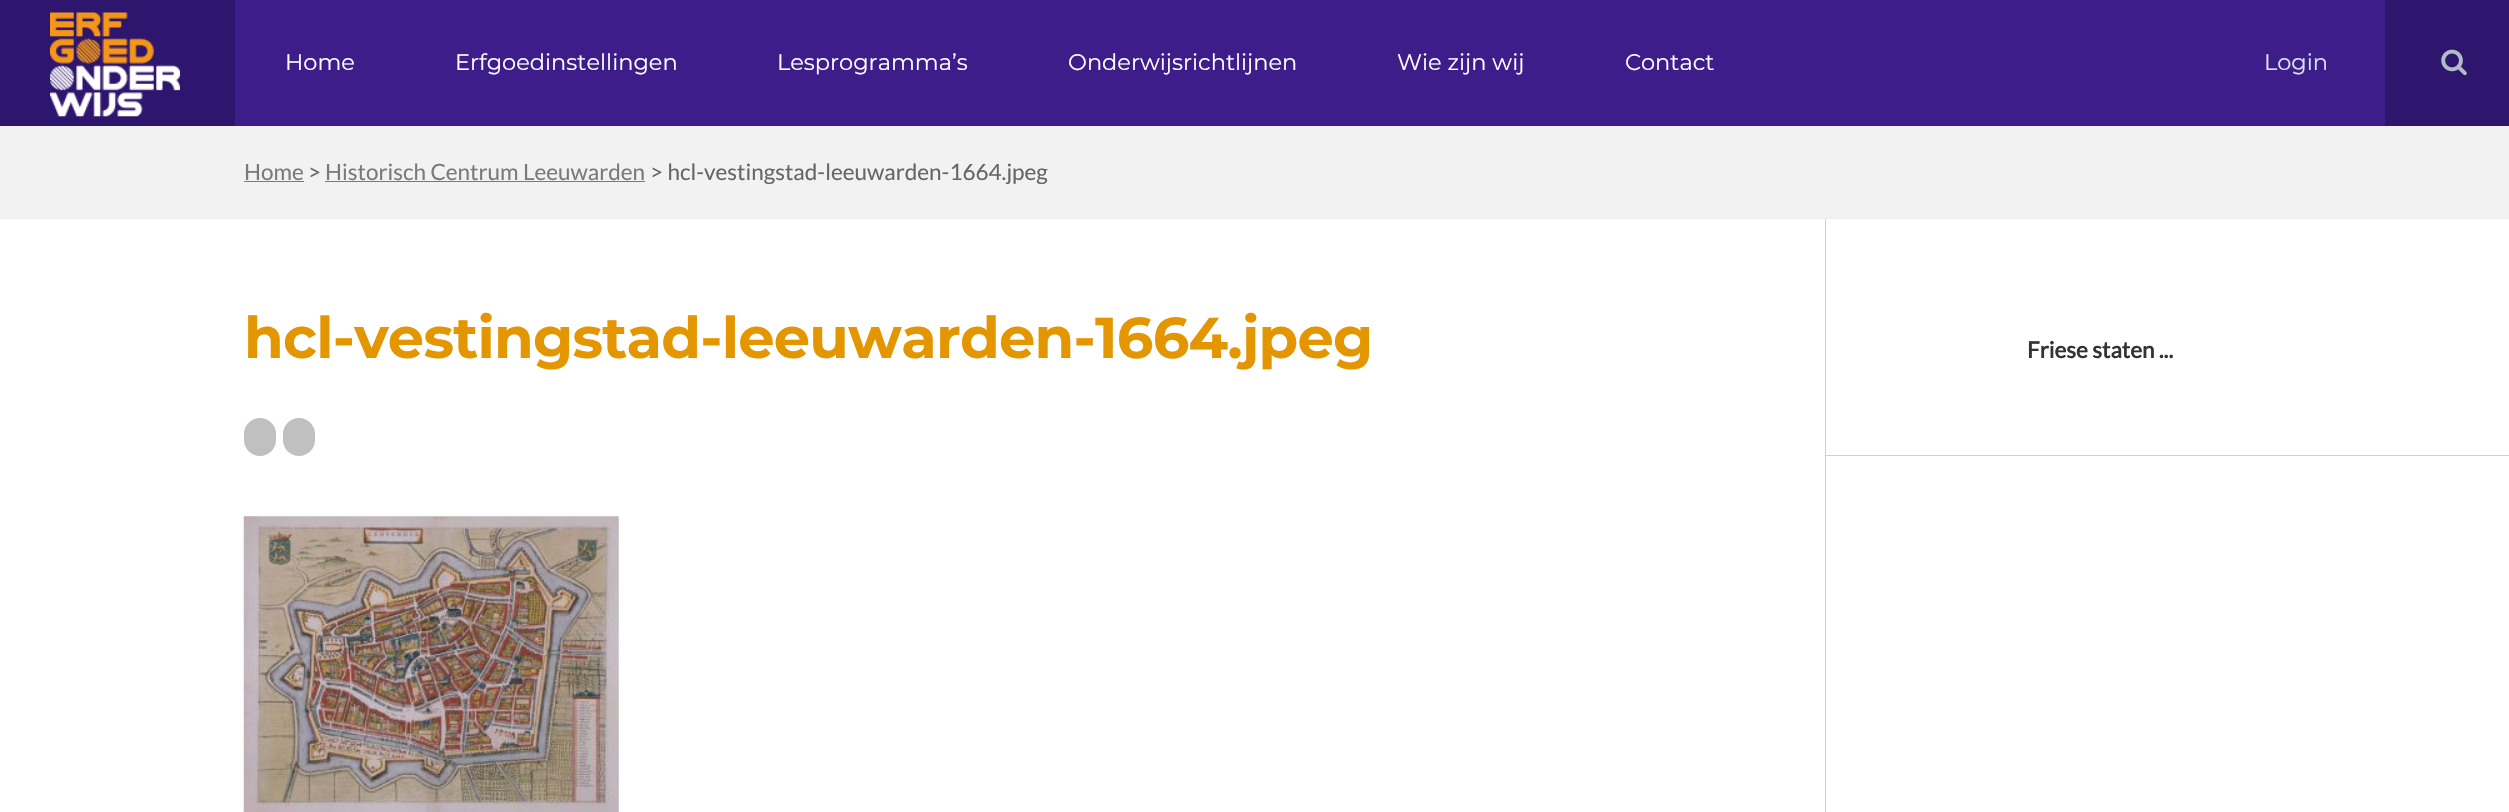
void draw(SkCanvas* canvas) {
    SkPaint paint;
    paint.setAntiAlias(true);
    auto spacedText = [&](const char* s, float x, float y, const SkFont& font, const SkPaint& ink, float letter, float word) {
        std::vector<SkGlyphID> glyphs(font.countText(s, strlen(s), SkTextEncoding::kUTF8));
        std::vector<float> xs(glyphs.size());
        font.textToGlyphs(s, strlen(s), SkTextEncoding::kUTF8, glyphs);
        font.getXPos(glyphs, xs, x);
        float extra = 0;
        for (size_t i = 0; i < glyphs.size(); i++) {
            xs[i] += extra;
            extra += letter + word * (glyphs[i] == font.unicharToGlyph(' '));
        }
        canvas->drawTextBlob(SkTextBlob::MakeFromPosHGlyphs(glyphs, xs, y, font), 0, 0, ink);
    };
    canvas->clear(0xFFFFFFFF);
    paint.setColor(0xFF3C1D8A);
    canvas->drawRect(SkRect::MakeXYWH(235, 0, 2150, 126), paint);
    paint.setColor(0xFF2E156D);
    canvas->drawRect(SkRect::MakeXYWH(0, 0, 235, 126), paint);
    canvas->drawImageRect(SkImages::DeferredFromEncodedData(SkData::MakeFromFileName("img1.png")), SkRect::MakeXYWH(50, 12, 130, 105), SkSamplingOptions());
    SkFont font1(fontMgr->matchFamilyStyle("Montserrat", SkFontStyle::Normal()), 22.5f);
    font1.setSubpixel(true);
    paint.setColor(0xFFFFFFFF);
    canvas->drawString("Home", 285, 70, font1, paint);
    canvas->drawString("Erfgoedinstellingen", 455, 70, font1, paint);
    canvas->drawString("Lesprogramma’s", 777, 70, font1, paint);
    canvas->drawString("Onderwijsrichtlijnen", 1068, 70, font1, paint);
    canvas->drawString("Wie zijn wij", 1397, 70, font1, paint);
    canvas->drawString("Contact", 1625, 70, font1, paint);
    paint.setColor(0xFF2E156D);
    canvas->drawRect(SkRect::MakeXYWH(2385, 0, 124, 126), paint);
    paint.setColor(0xFFD9E2EB);
    canvas->drawString("Login", 2264, 70, font1, paint);
    canvas->drawImageRect(SkImages::DeferredFromEncodedData(SkData::MakeFromFileName("img2.png")), SkRect::MakeXYWH(2441, 49, 26, 27), SkSamplingOptions());
    paint.setColor(0xFFF2F2F2);
    canvas->drawRect(SkRect::MakeXYWH(0, 126, 2509, 92), paint);
    paint.setColor(0xFFEFEFEF);
    canvas->drawRect(SkRect::MakeXYWH(0, 218, 2509, 1), paint);
    SkFont font2(fontMgr->matchFamilyStyle("Lato", SkFontStyle::Normal()), 22.5f);
    font2.setSubpixel(true);
    paint.setColor(0xFF7A7A7A);
    canvas->drawString("Home", 244, 180, font2, paint);
    canvas->drawRect(SkRect::MakeXYWH(244, 181, 60, 1), paint);
    paint.setColor(0xFF666666);
    canvas->drawString(">", 308, 180, font2, paint);
    paint.setColor(0xFF7A7A7A);
    canvas->drawString("Historisch Centrum Leeuwarden", 325, 180, font2, paint);
    canvas->drawRect(SkRect::MakeXYWH(325, 181, 320, 1), paint);
    paint.setColor(0xFF666666);
    canvas->drawString("> hcl-vestingstad-leeuwarden-1664.jpeg", 650, 180, font2, paint);
    paint.setColor(0xFFCFCFCF);
    canvas->drawRect(SkRect::MakeXYWH(1825, 219, 1, 593), paint);
    SkFont font3(fontMgr->matchFamilyStyle("Montserrat", SkFontStyle::Bold()), 57.5f);
    font3.setSubpixel(true);
    paint.setColor(0xFFE49600);
    spacedText("hcl-vestingstad-leeuwarden-1664.jpeg", 244, 358, font3, paint, -0.75f, 0);
    paint.setColor(0xFFC0C0C0);
    canvas->drawRoundRect(SkRect::MakeXYWH(244, 418, 32, 38), 16, 16, paint);
    canvas->drawRoundRect(SkRect::MakeXYWH(283, 418, 32, 38), 16, 16, paint);
    canvas->drawImageRect(SkImages::DeferredFromEncodedData(SkData::MakeFromFileName("img3.png")), SkRect::MakeXYWH(243, 516, 376, 296), SkSamplingOptions());
    SkFont font4(fontMgr->matchFamilyStyle("Lato", SkFontStyle::Bold()), 22.5f);
    font4.setSubpixel(true);
    paint.setColor(0xFF333333);
    canvas->drawString("Friese staten ...", 2027, 358, font4, paint);
    paint.setColor(0xFFCFCFCF);
    canvas->drawRect(SkRect::MakeXYWH(1826, 455, 683, 1), paint);
}
